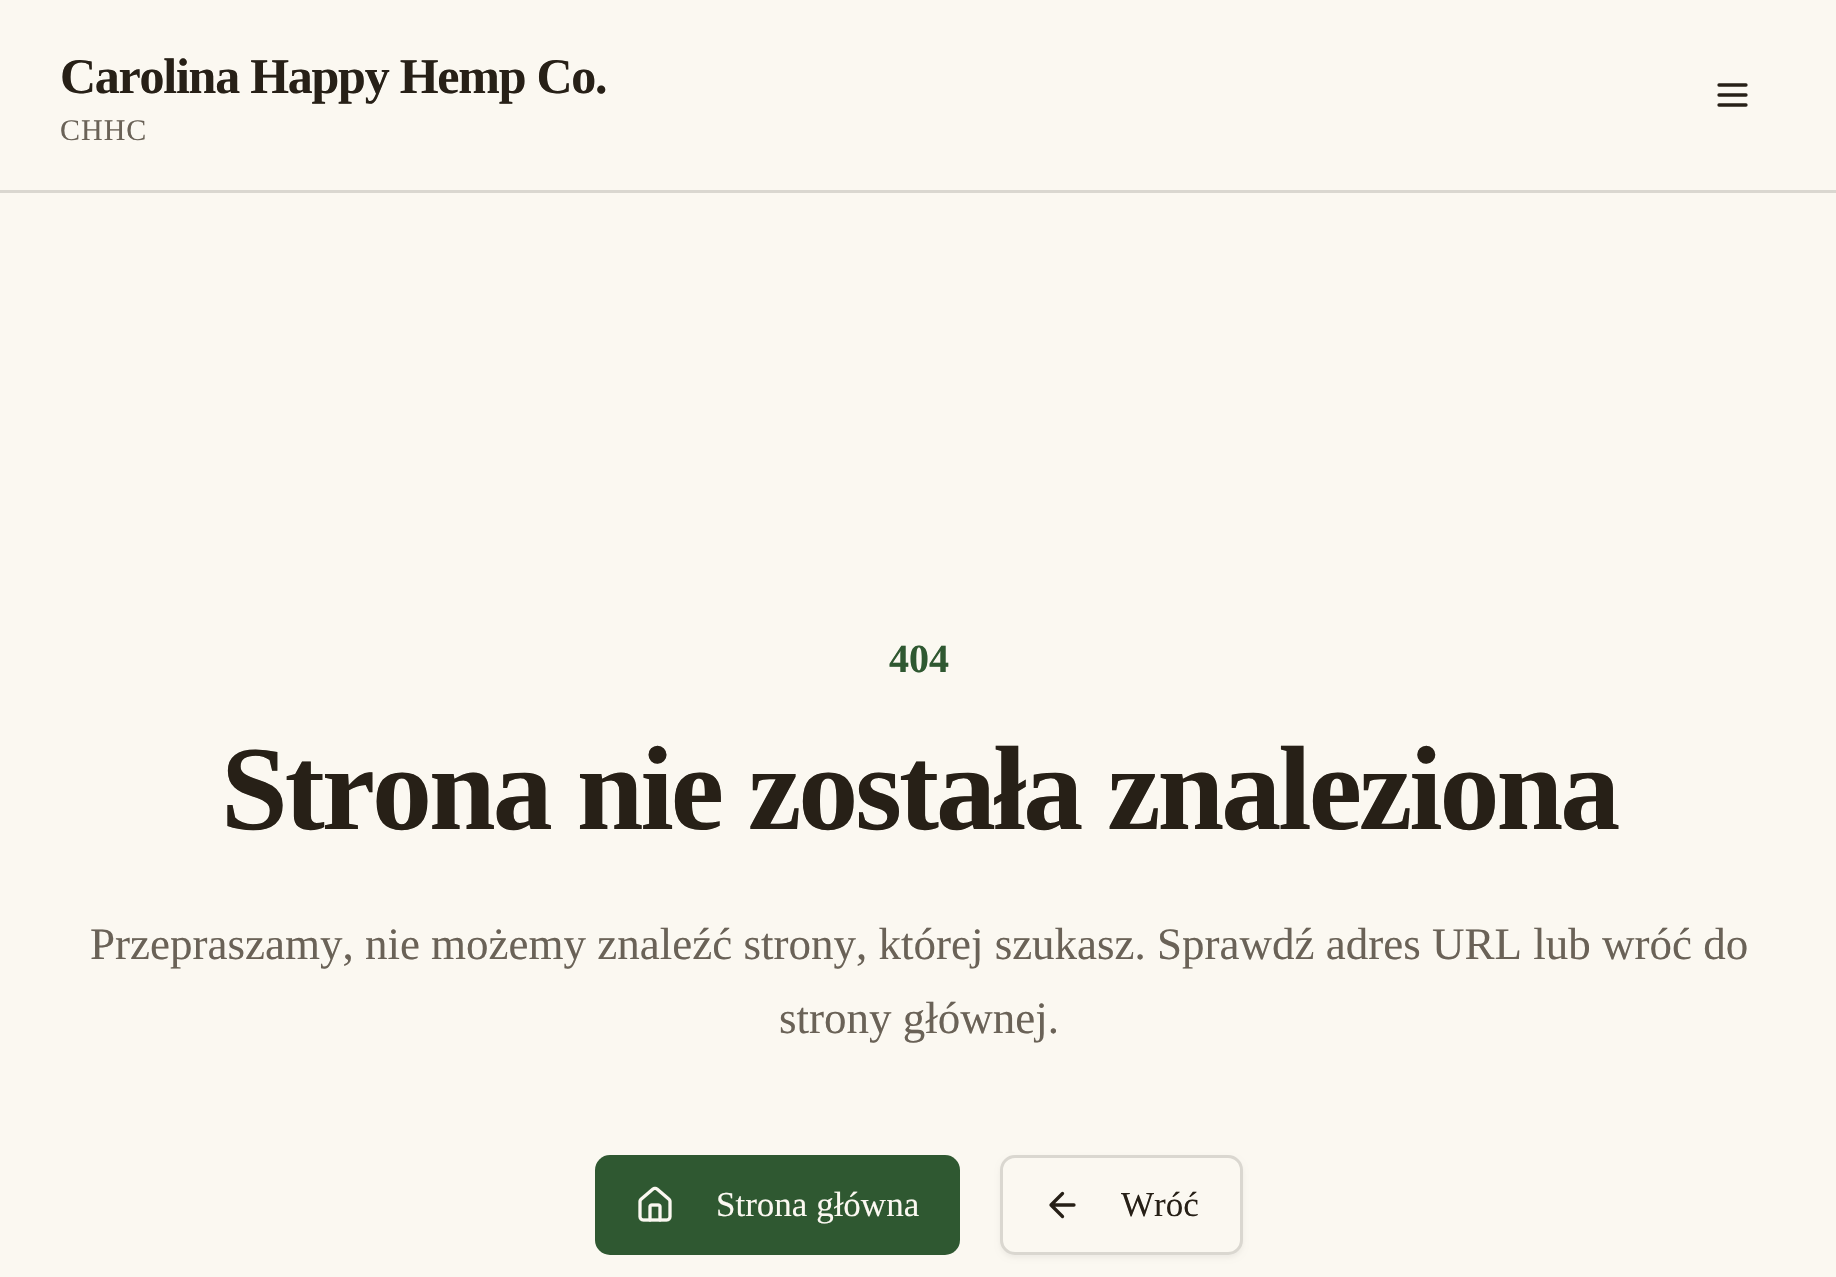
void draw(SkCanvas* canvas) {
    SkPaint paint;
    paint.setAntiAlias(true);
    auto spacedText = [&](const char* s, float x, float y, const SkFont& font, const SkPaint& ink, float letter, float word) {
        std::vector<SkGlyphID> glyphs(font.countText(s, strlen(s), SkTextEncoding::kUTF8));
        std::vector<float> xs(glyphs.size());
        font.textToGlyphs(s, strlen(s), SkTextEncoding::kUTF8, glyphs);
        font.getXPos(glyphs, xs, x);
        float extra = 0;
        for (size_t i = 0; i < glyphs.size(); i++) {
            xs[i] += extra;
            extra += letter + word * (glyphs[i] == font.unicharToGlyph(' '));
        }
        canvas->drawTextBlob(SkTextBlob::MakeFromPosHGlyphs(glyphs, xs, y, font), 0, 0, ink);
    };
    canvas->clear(0xFFFBF8F1);
    paint.setColor(0xFFDAD7D0);
    canvas->drawRect(SkRect::MakeXYWH(0, 190, 1836, 3), paint);
    SkFont font1(fontMgr->matchFamilyStyle("Liberation Serif", SkFontStyle::Bold()), 50);
    font1.setSubpixel(true);
    paint.setColor(0xFF272017);
    spacedText("Carolina Happy Hemp Co.", 60, 93, font1, paint, -1.25f, 0);
    SkFont font2(fontMgr->matchFamilyStyle("Liberation Serif", SkFontStyle::Normal()), 30);
    font2.setSubpixel(true);
    paint.setColor(0xFF6A6257);
    spacedText("CHHC", 60, 140, font2, paint, 1, 0);
    paint.setStyle(SkPaint::kStroke_Style);
    paint.setStrokeWidth(3.3f);
    paint.setStrokeCap(SkPaint::kRound_Cap);
    paint.setStrokeJoin(SkPaint::kRound_Join);
    paint.setColor(0xFF272017);
    canvas->drawPath(SkPathBuilder().moveTo(1719, 95).lineTo(1746, 95).moveTo(1719, 85).lineTo(1746, 85).moveTo(1719, 105).lineTo(1746, 105).detach(), paint);
    SkFont font3(fontMgr->matchFamilyStyle("Liberation Serif", SkFontStyle::Bold()), 40);
    font3.setSubpixel(true);
    paint.setStyle(SkPaint::kFill_Style);
    paint.setColor(0xFF2F5831);
    canvas->drawString("404", 889, 672, font3, paint);
    SkFont font4(fontMgr->matchFamilyStyle("Liberation Serif", SkFontStyle::Bold()), 120);
    font4.setSubpixel(true);
    paint.setColor(0xFF272017);
    spacedText("Strona nie została znaleziona", 221, 829, font4, paint, -3, 0);
    SkFont font5(fontMgr->matchFamilyStyle("Liberation Serif", SkFontStyle::Normal()), 45);
    font5.setSubpixel(true);
    paint.setColor(0xFF6A6257);
    canvas->drawString("Przepraszamy, nie możemy znaleźć strony, której szukasz. Sprawdź adres URL lub wróć do", 90, 959, font5, paint);
    canvas->drawString("strony głównej.", 779, 1033, font5, paint);
    paint.setColor(0xFF2F5831);
    canvas->drawRoundRect(SkRect::MakeXYWH(595, 1155, 365, 100), 15, 15, paint);
    canvas->drawImageRect(SkImages::DeferredFromEncodedData(SkData::MakeFromFileName("img1.png")), SkRect::MakeXYWH(638, 1186, 34, 36), SkSamplingOptions());
    SkFont font6(fontMgr->matchFamilyStyle("Liberation Serif", SkFontStyle::Normal()), 35);
    font6.setSubpixel(true);
    paint.setColor(0xFFFBF8F1);
    canvas->drawString("Strona główna", 716, 1216, font6, paint);
    paint.setColor(0x0D000000);
    paint.setMaskFilter(SkMaskFilter::MakeBlur(kNormal_SkBlurStyle, 2.5f));
    canvas->drawRoundRect(SkRect::MakeXYWH(1000, 1158, 243, 100), 15, 15, paint);
    paint.setMaskFilter(nullptr);
    paint.setColor(0xFFFBF8F1);
    canvas->drawRoundRect(SkRect::MakeXYWH(1001.5f, 1156.5f, 240, 97), 13.5f, 13.5f, paint);
    paint.setStyle(SkPaint::kStroke_Style);
    paint.setStrokeWidth(3);
    paint.setStrokeCap(SkPaint::kButt_Cap);
    paint.setStrokeJoin(SkPaint::kMiter_Join);
    paint.setColor(0xFFDAD7D0);
    canvas->drawRoundRect(SkRect::MakeXYWH(1001.5f, 1156.5f, 240, 97), 13.5f, 13.5f, paint);
    paint.setStrokeWidth(3.3f);
    paint.setStrokeCap(SkPaint::kRound_Cap);
    paint.setStrokeJoin(SkPaint::kRound_Join);
    paint.setColor(0xFF272017);
    canvas->drawPath(SkPathBuilder().moveTo(1062.5f, 1216.5f).lineTo(1051, 1205).lineTo(1062.5f, 1193.5f).moveTo(1074, 1205).lineTo(1051, 1205).detach(), paint);
    paint.setStyle(SkPaint::kFill_Style);
    canvas->drawString("Wróć", 1121, 1216, font6, paint);
}
